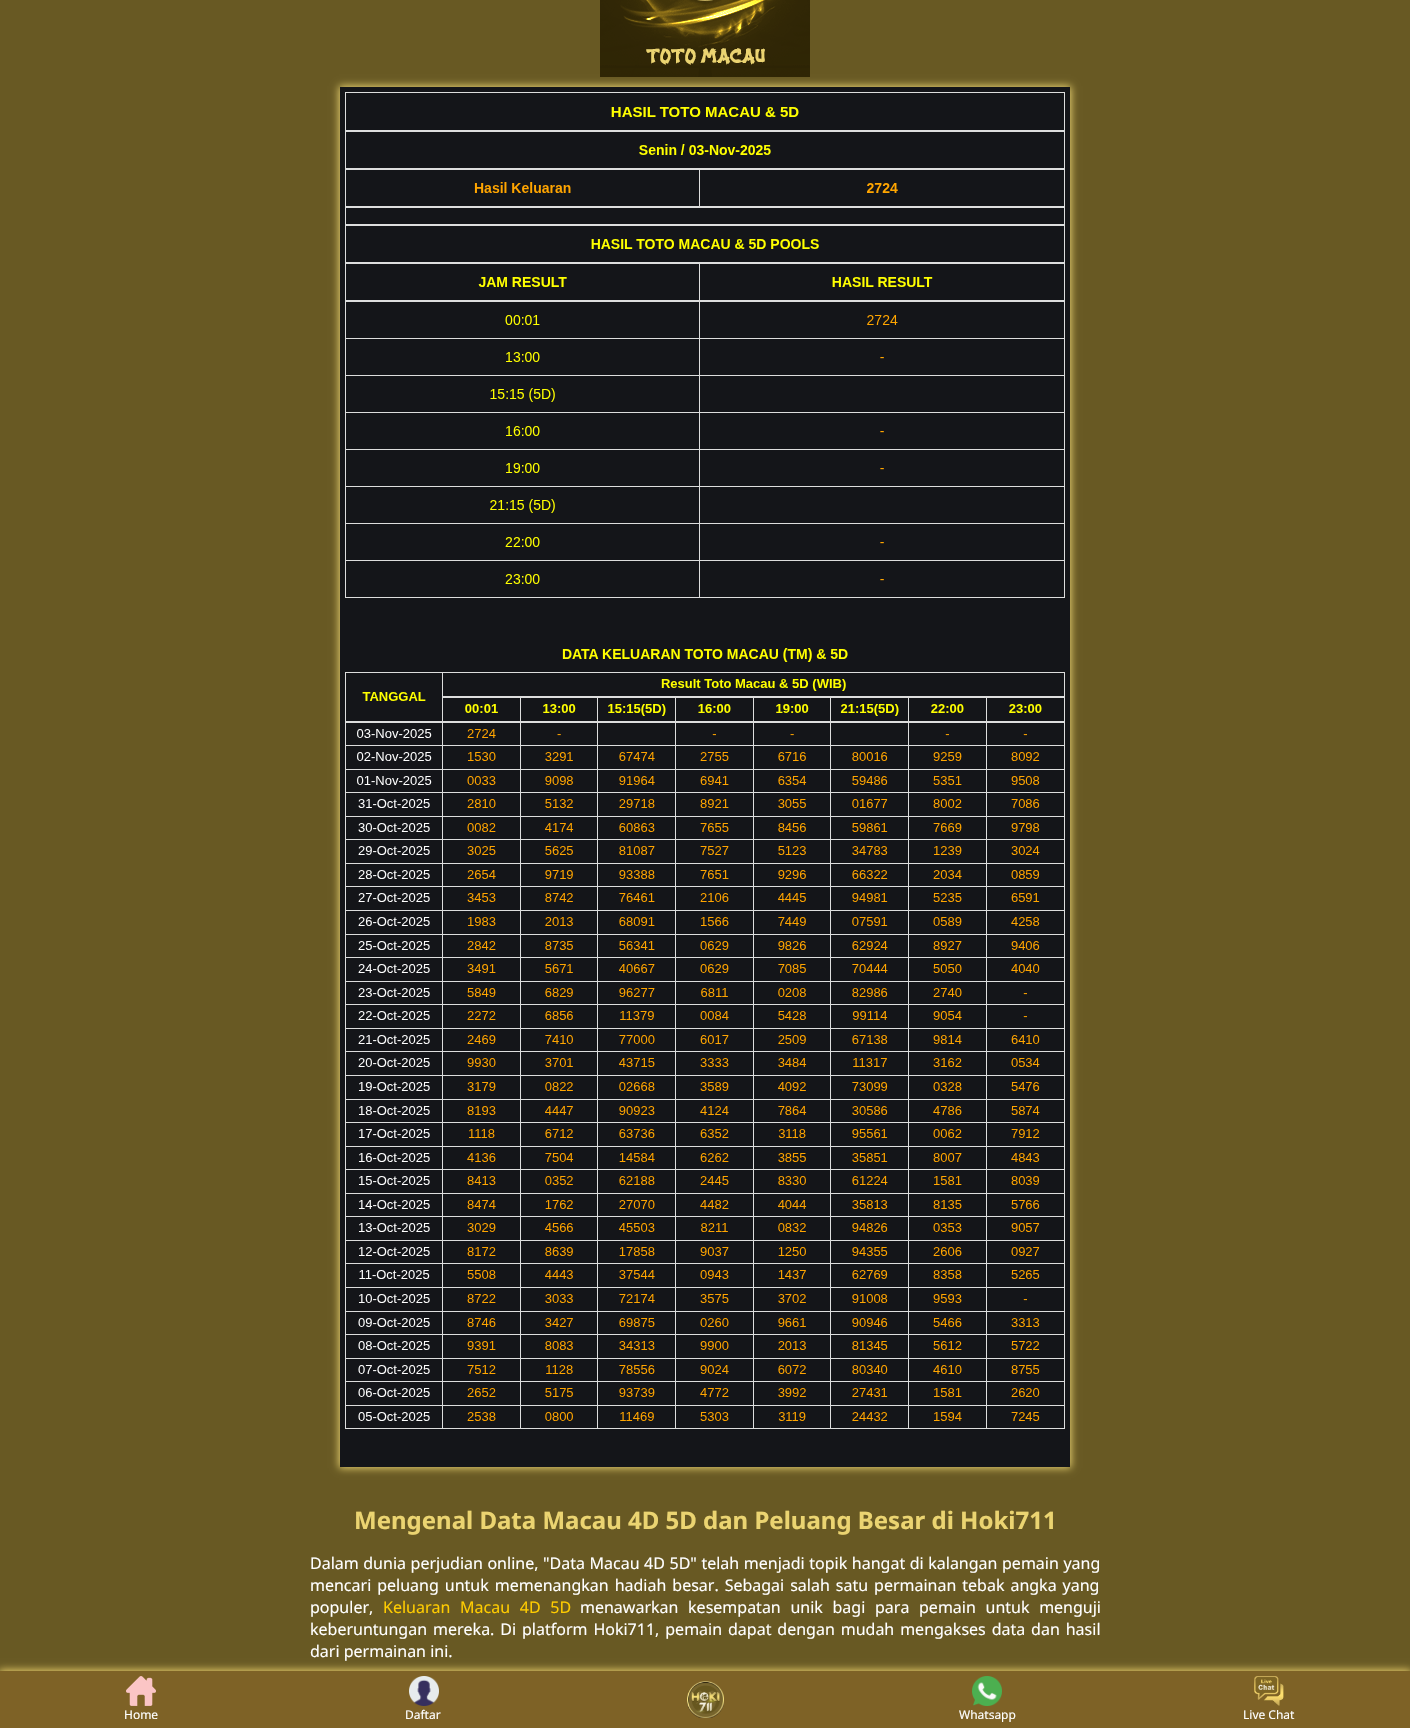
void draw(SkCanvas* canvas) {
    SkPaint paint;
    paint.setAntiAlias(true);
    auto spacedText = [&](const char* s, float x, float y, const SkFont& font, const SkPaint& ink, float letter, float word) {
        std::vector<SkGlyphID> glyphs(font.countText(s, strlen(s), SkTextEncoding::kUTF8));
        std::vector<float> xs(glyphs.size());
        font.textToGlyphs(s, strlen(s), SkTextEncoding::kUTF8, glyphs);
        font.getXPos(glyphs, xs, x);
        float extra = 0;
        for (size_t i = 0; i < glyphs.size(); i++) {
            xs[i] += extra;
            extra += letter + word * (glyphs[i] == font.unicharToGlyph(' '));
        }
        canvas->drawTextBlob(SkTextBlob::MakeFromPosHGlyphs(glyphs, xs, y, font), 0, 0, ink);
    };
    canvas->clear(0xFF685923);
    paint.setColor(0xFFEBD471);
    paint.setMaskFilter(SkMaskFilter::MakeBlur(kNormal_SkBlurStyle, 4));
    canvas->drawRect(SkRect::MakeXYWH(339, 86, 732, 1382), paint);
    paint.setMaskFilter(nullptr);
    canvas->drawImageRect(SkImages::DeferredFromEncodedData(SkData::MakeFromFileName("img1.png")), SkRect::MakeXYWH(600, 0, 210, 77), SkSamplingOptions());
    canvas->drawImageRect(SkImages::DeferredFromEncodedData(SkData::MakeFromFileName("img2.png")), SkRect::MakeXYWH(340, 87, 730, 540), SkSamplingOptions());
    canvas->drawImageRect(SkImages::DeferredFromEncodedData(SkData::MakeFromFileName("img3.png")), SkRect::MakeXYWH(340, 627, 730, 840), SkSamplingOptions());
    SkFont font1(fontMgr->matchFamilyStyle("Noto Sans", SkFontStyle::Bold()), 24);
    font1.setSubpixel(true);
    canvas->drawString("Mengenal Data Macau 4D 5D dan Peluang Besar di Hoki711", 354, 1529, font1, paint);
    SkFont font2(fontMgr->matchFamilyStyle("Noto Sans", SkFontStyle::Normal()), 16);
    font2.setSubpixel(true);
    paint.setColor(0xFFFFFFFF);
    spacedText("Dalam dunia perjudian online, \"Data Macau 4D 5D\" telah menjadi topik hangat di kalangan pemain yang", 310, 1569, font2, paint, 0, 0.4f);
    spacedText("mencari peluang untuk memenangkan hadiah besar. Sebagai salah satu permainan tebak angka yang", 310, 1591, font2, paint, 0, 1.8f);
    canvas->drawString("populer,", 310, 1613, font2, paint);
    paint.setColor(0xFFFFCC00);
    spacedText("Keluaran Macau 4D 5D", 383, 1613, font2, paint, 0, 5.5f);
    paint.setColor(0xFFFFFFFF);
    spacedText("menawarkan kesempatan unik bagi para pemain untuk menguji", 580, 1613, font2, paint, 0, 5.5f);
    spacedText("keberuntungan mereka. Di platform Hoki711, pemain dapat dengan mudah mengakses data dan hasil", 310, 1635, font2, paint, 0, 1.75f);
    canvas->drawString("dari permainan ini.", 310, 1657, font2, paint);
    paint.setColor(0xFFF0D46D);
    paint.setMaskFilter(SkMaskFilter::MakeBlur(kNormal_SkBlurStyle, 4));
    canvas->drawRect(SkRect::MakeXYWH(-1, 1670, 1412, 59), paint);
    paint.setMaskFilter(nullptr);
    paint.setColor(0xFF7E6226);
    canvas->drawRect(SkRect::MakeXYWH(0, 1671, 1410, 57), paint);
    canvas->drawImageRect(SkImages::DeferredFromEncodedData(SkData::MakeFromFileName("img4.png")), SkRect::MakeXYWH(126, 1676, 30, 30), SkSamplingOptions());
    SkFont font3(fontMgr->matchFamilyStyle("Noto Sans", SkFontStyle::Normal()), 12);
    font3.setSubpixel(true);
    paint.setColor(0xFFFFFFFF);
    canvas->drawString("Home", 124, 1719, font3, paint);
    canvas->drawImageRect(SkImages::DeferredFromEncodedData(SkData::MakeFromFileName("img5.png")), SkRect::MakeXYWH(409, 1676, 30, 30), SkSamplingOptions());
    canvas->drawString("Daftar", 405, 1719, font3, paint);
    canvas->drawImageRect(SkImages::DeferredFromEncodedData(SkData::MakeFromFileName("img6.png")), SkRect::MakeXYWH(687, 1681, 37, 37), SkSamplingOptions());
    canvas->drawImageRect(SkImages::DeferredFromEncodedData(SkData::MakeFromFileName("img7.png")), SkRect::MakeXYWH(972, 1676, 30, 30), SkSamplingOptions());
    canvas->drawString("Whatsapp", 959, 1719, font3, paint);
    canvas->drawImageRect(SkImages::DeferredFromEncodedData(SkData::MakeFromFileName("img8.png")), SkRect::MakeXYWH(1254, 1676, 30, 30), SkSamplingOptions());
    canvas->drawString("Live Chat", 1243, 1719, font3, paint);
}
